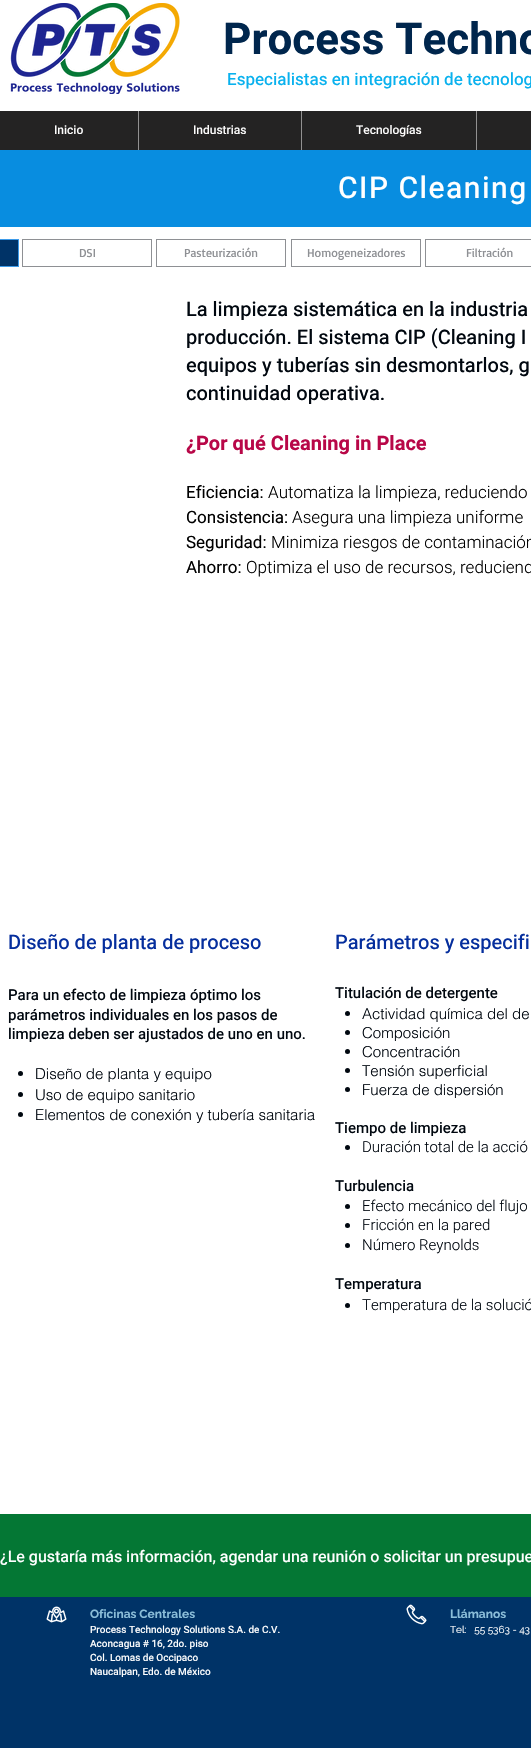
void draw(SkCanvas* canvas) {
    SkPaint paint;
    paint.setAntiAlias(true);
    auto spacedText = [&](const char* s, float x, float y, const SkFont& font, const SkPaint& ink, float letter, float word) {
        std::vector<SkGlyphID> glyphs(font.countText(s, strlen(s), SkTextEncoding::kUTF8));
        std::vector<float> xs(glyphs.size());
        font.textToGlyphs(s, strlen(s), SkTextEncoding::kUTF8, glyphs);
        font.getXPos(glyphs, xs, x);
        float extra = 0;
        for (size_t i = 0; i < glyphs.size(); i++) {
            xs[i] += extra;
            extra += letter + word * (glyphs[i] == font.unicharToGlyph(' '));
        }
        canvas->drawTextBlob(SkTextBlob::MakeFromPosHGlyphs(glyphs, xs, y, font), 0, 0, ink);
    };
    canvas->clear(0xFFFFFFFF);
    canvas->drawImageRect(SkImages::DeferredFromEncodedData(SkData::MakeFromFileName("img1.png")), SkRect::MakeXYWH(10, 3, 170, 91), SkSamplingOptions());
    SkFont font1(fontMgr->matchFamilyStyle("Roboto", SkFontStyle::Bold()), 44);
    font1.setSubpixel(true);
    paint.setColor(0xFF00264D);
    canvas->drawString("Process Techno", 223, 54, font1, paint);
    SkFont font2(fontMgr->matchFamilyStyle("Heebo", SkFontStyle(500, SkFontStyle::kNormal_Width, SkFontStyle::kUpright_Slant)), 17);
    font2.setSubpixel(true);
    paint.setColor(0xFF09B1EE);
    canvas->drawString("Especialistas en integración de tecnolog", 227, 85, font2, paint);
    paint.setColor(0xFF242323);
    canvas->drawRect(SkRect::MakeXYWH(0, 111, 531, 39), paint);
    SkFont font3(fontMgr->matchFamilyStyle("Heebo", SkFontStyle(500, SkFontStyle::kNormal_Width, SkFontStyle::kUpright_Slant)), 12);
    font3.setSubpixel(true);
    paint.setColor(0xFFFFFFFF);
    canvas->drawString("Inicio", 54, 134, font3, paint);
    paint.setColor(0xFF929191);
    canvas->drawRect(SkRect::MakeXYWH(138, 111, 1, 39), paint);
    paint.setColor(0xFFFFFFFF);
    canvas->drawString("Industrias", 193, 134, font3, paint);
    paint.setColor(0xFF929191);
    canvas->drawRect(SkRect::MakeXYWH(301, 111, 1, 39), paint);
    paint.setColor(0xFFFFFFFF);
    canvas->drawString("Tecnologías", 356, 134, font3, paint);
    paint.setColor(0xFF929191);
    canvas->drawRect(SkRect::MakeXYWH(476, 111, 1, 39), paint);
    paint.setColor(0xFF088DE0);
    canvas->drawRect(SkRect::MakeXYWH(0, 150, 531, 77), paint);
    SkFont font4(fontMgr->matchFamilyStyle("Heebo", SkFontStyle(500, SkFontStyle::kNormal_Width, SkFontStyle::kUpright_Slant)), 30);
    font4.setSubpixel(true);
    paint.setColor(0xFFFFFFFF);
    spacedText("CIP Cleaning", 338, 198, font4, paint, 1.5f, 0);
    paint.setColor(0xFF003367);
    canvas->drawRect(SkRect::MakeXYWH(-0.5f, 239.5f, 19, 27), paint);
    paint.setStyle(SkPaint::kStroke_Style);
    paint.setStrokeWidth(1);
    paint.setColor(0xFF3D9BE9);
    canvas->drawRect(SkRect::MakeXYWH(-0.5f, 239.5f, 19, 27), paint);
    paint.setColor(0xFF8E9094);
    canvas->drawRect(SkRect::MakeXYWH(22.5f, 239.5f, 129, 27), paint);
    SkFont font5(fontMgr->matchFamilyStyle("Basic", SkFontStyle::Normal()), 12);
    font5.setSubpixel(true);
    paint.setStyle(SkPaint::kFill_Style);
    canvas->drawString("DSI", 79, 257, font5, paint);
    paint.setStyle(SkPaint::kStroke_Style);
    canvas->drawRect(SkRect::MakeXYWH(156.5f, 239.5f, 129, 27), paint);
    paint.setStyle(SkPaint::kFill_Style);
    canvas->drawString("Pasteurización", 184, 257, font5, paint);
    paint.setStyle(SkPaint::kStroke_Style);
    canvas->drawRect(SkRect::MakeXYWH(291.5f, 239.5f, 129, 27), paint);
    paint.setStyle(SkPaint::kFill_Style);
    canvas->drawString("Homogeneizadores", 307, 257, font5, paint);
    paint.setStyle(SkPaint::kStroke_Style);
    canvas->drawRect(SkRect::MakeXYWH(425.5f, 239.5f, 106, 27), paint);
    paint.setStyle(SkPaint::kFill_Style);
    canvas->drawString("Filtración", 466, 257, font5, paint);
    SkFont font6(fontMgr->matchFamilyStyle("Heebo", SkFontStyle(500, SkFontStyle::kNormal_Width, SkFontStyle::kUpright_Slant)), 20);
    font6.setSubpixel(true);
    paint.setColor(0xFF00070F);
    canvas->drawString("La limpieza sistemática en la industria", 186, 316, font6, paint);
    canvas->drawString("producción. El sistema CIP (Cleaning I", 186, 344, font6, paint);
    canvas->drawString("equipos y tuberías sin desmontarlos, g", 186, 372, font6, paint);
    canvas->drawString("continuidad operativa.", 186, 400, font6, paint);
    SkFont font7(fontMgr->matchFamilyStyle("Heebo", SkFontStyle::Bold()), 20);
    font7.setSubpixel(true);
    paint.setColor(0xFFB80748);
    canvas->drawString("¿Por qué Cleaning in Place", 186, 450, font7, paint);
    SkFont font8(fontMgr->matchFamilyStyle("Heebo", SkFontStyle::Normal()), 17);
    font8.setSubpixel(true);
    paint.setColor(0xFF000000);
    canvas->drawString("Eficiencia:", 186, 498, font8, paint);
    SkFont font9(fontMgr->matchFamilyStyle("Heebo", SkFontStyle(300, SkFontStyle::kNormal_Width, SkFontStyle::kUpright_Slant)), 17);
    font9.setSubpixel(true);
    canvas->drawString("Automatiza la limpieza, reduciendo", 268, 498, font9, paint);
    canvas->drawString("Consistencia:", 186, 523, font8, paint);
    canvas->drawString("Asegura una limpieza uniforme", 292, 523, font9, paint);
    canvas->drawString("Seguridad:", 186, 548, font8, paint);
    canvas->drawString("Minimiza riesgos de contaminación", 271, 548, font9, paint);
    canvas->drawString("Ahorro:", 186, 573, font8, paint);
    canvas->drawString("Optimiza el uso de recursos, reduciend", 246, 573, font9, paint);
    paint.setColor(0xFF052E9D);
    canvas->drawString("Diseño de planta de proceso", 8, 949, font6, paint);
    SkFont font10(fontMgr->matchFamilyStyle("Heebo", SkFontStyle(500, SkFontStyle::kNormal_Width, SkFontStyle::kUpright_Slant)), 15);
    font10.setSubpixel(true);
    paint.setColor(0xFF00070F);
    canvas->drawString("Para un efecto de limpieza óptimo los", 8, 1000, font10, paint);
    canvas->drawString("parámetros individuales en los pasos de", 8, 1020, font10, paint);
    canvas->drawString("limpieza deben ser ajustados de uno en uno.", 8, 1039, font10, paint);
    canvas->drawCircle(20.5f, 1073.5f, 2.5f, paint);
    SkFont font11(fontMgr->matchFamilyStyle("helvetica", SkFontStyle(300, SkFontStyle::kNormal_Width, SkFontStyle::kUpright_Slant)), 15);
    font11.setSubpixel(true);
    canvas->drawString("Diseño de planta y equipo", 35, 1079, font11, paint);
    canvas->drawCircle(20.5f, 1094.5f, 2.5f, paint);
    canvas->drawString("Uso de equipo sanitario", 35, 1100, font11, paint);
    canvas->drawCircle(20.5f, 1114.5f, 2.5f, paint);
    canvas->drawString("Elementos de conexión y tubería sanitaria", 35, 1120, font11, paint);
    paint.setColor(0xFF052E9D);
    canvas->drawString("Parámetros y especifi", 335, 949, font6, paint);
    paint.setColor(0xFF00070F);
    canvas->drawString("Titulación de detergente", 335, 998, font10, paint);
    canvas->drawCircle(347.5f, 1013.5f, 2.5f, paint);
    canvas->drawString("Actividad química del de", 362, 1019, font11, paint);
    canvas->drawCircle(347.5f, 1032.5f, 2.5f, paint);
    canvas->drawString("Composición", 362, 1038, font11, paint);
    canvas->drawCircle(347.5f, 1051.5f, 2.5f, paint);
    canvas->drawString("Concentración", 362, 1057, font11, paint);
    canvas->drawCircle(347.5f, 1070.5f, 2.5f, paint);
    canvas->drawString("Tensión superficial", 362, 1076, font11, paint);
    canvas->drawCircle(347.5f, 1089.5f, 2.5f, paint);
    canvas->drawString("Fuerza de dispersión", 362, 1095, font11, paint);
    canvas->drawString("Tiempo de limpieza", 335, 1133, font10, paint);
    canvas->drawCircle(347.5f, 1147.5f, 2.5f, paint);
    SkFont font12(fontMgr->matchFamilyStyle("Heebo", SkFontStyle(300, SkFontStyle::kNormal_Width, SkFontStyle::kUpright_Slant)), 15);
    font12.setSubpixel(true);
    canvas->drawString("Duración total de la acció", 362, 1152, font12, paint);
    canvas->drawString("Turbulencia", 335, 1191, font10, paint);
    canvas->drawCircle(347.5f, 1206.5f, 2.5f, paint);
    canvas->drawString("Efecto mecánico del flujo", 362, 1211, font12, paint);
    canvas->drawCircle(347.5f, 1225.5f, 2.5f, paint);
    canvas->drawString("Fricción en la pared", 362, 1230, font12, paint);
    canvas->drawCircle(347.5f, 1245.5f, 2.5f, paint);
    canvas->drawString("Número Reynolds", 362, 1250, font12, paint);
    canvas->drawString("Temperatura", 335, 1289, font10, paint);
    canvas->drawCircle(347.5f, 1305.5f, 2.5f, paint);
    canvas->drawString("Temperatura de la solució", 362, 1310, font12, paint);
    paint.setColor(0xFF047734);
    canvas->drawRect(SkRect::MakeXYWH(0, 1514, 531, 83), paint);
    SkFont font13(fontMgr->matchFamilyStyle("Heebo", SkFontStyle(500, SkFontStyle::kNormal_Width, SkFontStyle::kUpright_Slant)), 16);
    font13.setSubpixel(true);
    paint.setColor(0xFFFFFFFF);
    canvas->drawString("¿Le gustaría más información, agendar una reunión o solicitar un presupue", 0, 1562, font13, paint);
    paint.setColor(0xFF003367);
    canvas->drawRect(SkRect::MakeXYWH(0, 1597, 531, 151), paint);
    canvas->drawImageRect(SkImages::DeferredFromEncodedData(SkData::MakeFromFileName("img2.png")), SkRect::MakeXYWH(46, 1606, 21, 17), SkSamplingOptions());
    SkFont font14(fontMgr->matchFamilyStyle("Raleway", SkFontStyle::Bold()), 12);
    font14.setSubpixel(true);
    paint.setColor(0xFF8BBED9);
    canvas->drawString("Oficinas Centrales", 90, 1618, font14, paint);
    SkFont font15(fontMgr->matchFamilyStyle("Heebo", SkFontStyle(500, SkFontStyle::kNormal_Width, SkFontStyle::kUpright_Slant)), 10);
    font15.setSubpixel(true);
    paint.setColor(0xFFFFFFFF);
    canvas->drawString("Process Technology Solutions S.A. de C.V.", 90, 1633, font15, paint);
    canvas->drawString("Aconcagua # 16, 2do. piso", 90, 1647, font15, paint);
    canvas->drawString("Col. Lomas de Occipaco", 90, 1661, font15, paint);
    canvas->drawString("Naucalpan, Edo. de México", 90, 1675, font15, paint);
    canvas->drawImageRect(SkImages::DeferredFromEncodedData(SkData::MakeFromFileName("img3.png")), SkRect::MakeXYWH(406, 1604, 21, 21), SkSamplingOptions());
    paint.setColor(0xFF8BBED9);
    canvas->drawString("Llámanos", 450, 1618, font14, paint);
    SkFont font16(fontMgr->matchFamilyStyle("Raleway", SkFontStyle::Normal()), 10);
    font16.setSubpixel(true);
    paint.setColor(0xFFFFFFFF);
    canvas->drawString("Tel:   55 5363 - 43", 450, 1633, font16, paint);
}
